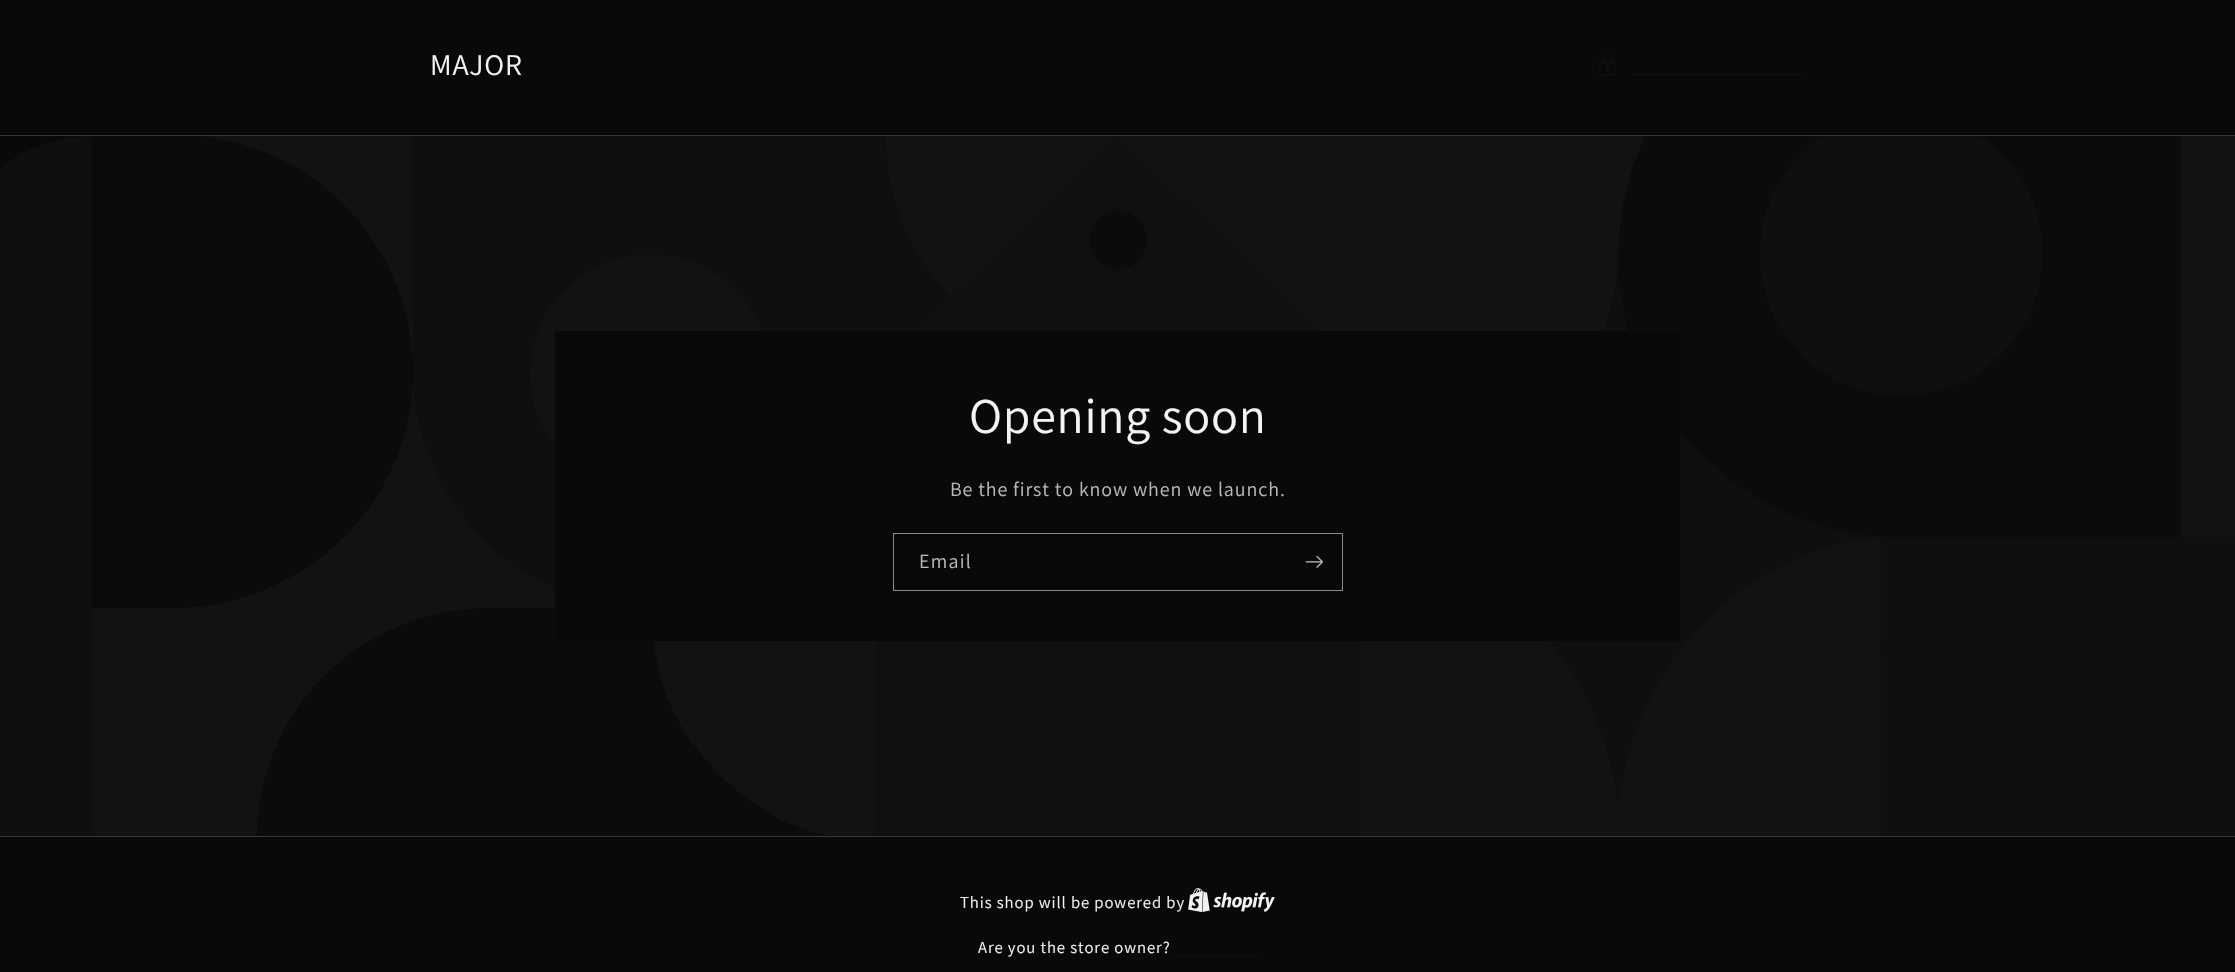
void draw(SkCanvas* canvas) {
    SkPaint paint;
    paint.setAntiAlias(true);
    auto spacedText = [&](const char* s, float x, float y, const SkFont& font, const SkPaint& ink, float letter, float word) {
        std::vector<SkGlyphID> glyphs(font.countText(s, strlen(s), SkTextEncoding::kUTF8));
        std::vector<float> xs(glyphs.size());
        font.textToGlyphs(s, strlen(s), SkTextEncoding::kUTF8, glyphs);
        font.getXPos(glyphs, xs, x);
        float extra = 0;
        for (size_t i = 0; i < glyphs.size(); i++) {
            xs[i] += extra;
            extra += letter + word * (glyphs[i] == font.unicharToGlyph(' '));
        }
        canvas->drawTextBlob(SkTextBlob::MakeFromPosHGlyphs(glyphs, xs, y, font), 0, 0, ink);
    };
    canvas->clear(0xFF090909);
    SkFont font1(fontMgr->matchFamilyStyle("Assistant", SkFontStyle::Normal()), 30);
    font1.setSubpixel(true);
    paint.setColor(0xFFF3F3F3);
    spacedText("MAJOR", 430, 75, font1, paint, 0.75f, 0);
    canvas->drawImageRect(SkImages::DeferredFromEncodedData(SkData::MakeFromFileName("img1.png")), SkRect::MakeXYWH(1599, 54, 17, 22), SkSamplingOptions());
    paint.setColor(0xFF111111);
    canvas->drawRect(SkRect::MakeXYWH(1631, 74, 174, 1), paint);
    paint.setColor(0xFF383838);
    canvas->drawRect(SkRect::MakeXYWH(0, 135, 2235, 1), paint);
    canvas->drawImageRect(SkImages::DeferredFromEncodedData(SkData::MakeFromFileName("img2.png")), SkRect::MakeXYWH(0, 136, 2235, 700), SkSamplingOptions());
    paint.setColor(0xFF090909);
    canvas->drawRect(SkRect::MakeXYWH(555, 331, 1125, 310), paint);
    SkFont font2(fontMgr->matchFamilyStyle("Assistant", SkFontStyle::Normal()), 50);
    font2.setSubpixel(true);
    paint.setColor(0xFFF3F3F3);
    spacedText("Opening soon", 969, 433, font2, paint, 0.75f, 0);
    SkFont font3(fontMgr->matchFamilyStyle("Assistant", SkFontStyle::Normal()), 20);
    font3.setSubpixel(true);
    paint.setColor(0xFFB9B9B9);
    spacedText("Be the first to know when we launch.", 950, 496, font3, paint, 0.9f, 0);
    paint.setStyle(SkPaint::kStroke_Style);
    paint.setStrokeWidth(1);
    paint.setColor(0xFF8A8A8A);
    canvas->drawRect(SkRect::MakeXYWH(893.5f, 533.5f, 449, 57), paint);
    paint.setStyle(SkPaint::kFill_Style);
    paint.setColor(0xFFB9B9B9);
    spacedText("Email", 919, 568, font3, paint, 1.25f, 0);
    canvas->drawImageRect(SkImages::DeferredFromEncodedData(SkData::MakeFromFileName("img3.png")), SkRect::MakeXYWH(1305, 555, 18, 13), SkSamplingOptions());
    paint.setColor(0xFF383838);
    canvas->drawRect(SkRect::MakeXYWH(0, 836, 2235, 1), paint);
    SkFont font4(fontMgr->matchFamilyStyle("Assistant", SkFontStyle::Normal()), 16.7f);
    font4.setSubpixel(true);
    paint.setColor(0xFFF3F3F3);
    spacedText("This shop will be powered by", 960, 908, font4, paint, 0.9f, 0);
    canvas->drawImageRect(SkImages::DeferredFromEncodedData(SkData::MakeFromFileName("img4.png")), SkRect::MakeXYWH(1188, 888, 87, 25), SkSamplingOptions());
    spacedText("Are you the store owner?", 978, 953, font4, paint, 0.9f, 0);
    paint.setColor(0xFF111111);
    canvas->drawRect(SkRect::MakeXYWH(1174, 956, 84, 1), paint);
}
